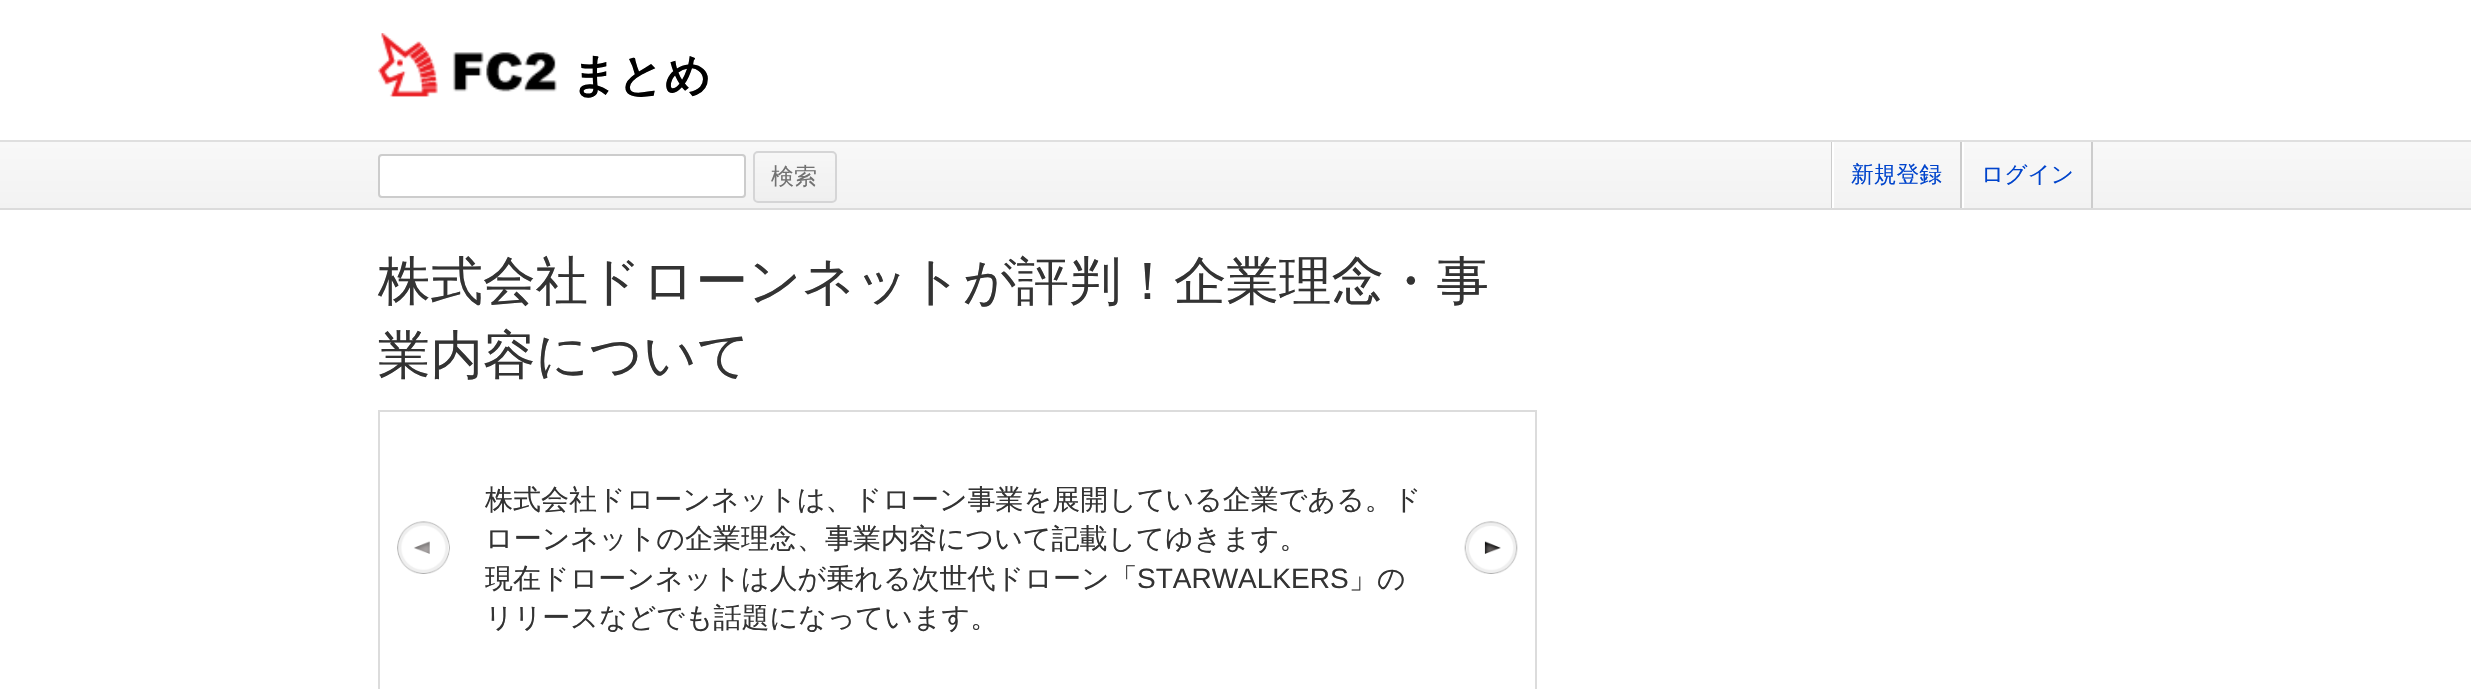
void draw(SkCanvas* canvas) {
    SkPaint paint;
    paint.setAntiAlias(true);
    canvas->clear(0xFFFFFFFF);
    canvas->drawImageRect(SkImages::DeferredFromEncodedData(SkData::MakeFromFileName("img1.png")), SkRect::MakeXYWH(378, 33, 179, 64), SkSamplingOptions());
    SkFont font1(fontMgr->matchFamilyStyle("WenQuanYi Zen Hei", SkFontStyle::Bold()), 45.5f);
    font1.setSubpixel(true);
    paint.setColor(0xFF000000);
    canvas->drawString("まとめ", 571, 91, font1, paint);
    {
        const SkColor colors[] = {0xFFF8F8F8, 0xFFF2F2F2};
        const float stops[] = {0, 1};
        const SkPoint ends[] = {{1236, 142}, {1236, 208}};
        paint.setShader(SkGradientShader::MakeLinear(ends, colors, stops, 2, SkTileMode::kClamp));
        paint.setAlpha(255);
    }
    canvas->drawRect(SkRect::MakeXYWH(0, 142, 2471, 66), paint);
    paint.setShader(nullptr);
    paint.setColor(0xFFDFDFDF);
    canvas->drawRect(SkRect::MakeXYWH(0, 140, 2471, 2), paint);
    paint.setColor(0xFFDBDBDB);
    canvas->drawRect(SkRect::MakeXYWH(0, 208, 2471, 2), paint);
    paint.setColor(0xFFFFFFFF);
    canvas->drawRoundRect(SkRect::MakeXYWH(379, 155, 366, 42), 3, 3, paint);
    paint.setStyle(SkPaint::kStroke_Style);
    paint.setStrokeWidth(2);
    paint.setColor(0xFFCCCCCC);
    canvas->drawRoundRect(SkRect::MakeXYWH(379, 155, 366, 42), 3, 3, paint);
    canvas->save();
    canvas->clipPath(SkPathBuilder().moveTo(758, 151).lineTo(832, 151).cubicTo(835, 151, 837, 153, 837, 156).lineTo(837, 198).cubicTo(837, 201, 835, 203, 832, 203).lineTo(758, 203).cubicTo(755, 203, 753, 201, 753, 198).lineTo(753, 156).cubicTo(753, 153, 755, 151, 758, 151).close().detach(), true);
    paint.setStyle(SkPaint::kFill_Style);
    {
        const SkColor colors[] = {0xFFF7F7F7, 0xFFEFEFEF};
        const float stops[] = {0, 1};
        const SkPoint ends[] = {{795, 152}, {795, 201}};
        paint.setShader(SkGradientShader::MakeLinear(ends, colors, stops, 2, SkTileMode::kClamp));
        paint.setAlpha(255);
    }
    canvas->drawRect(SkRect::MakeXYWH(753, 152, 84, 49), paint);
    canvas->restore();
    paint.setStyle(SkPaint::kStroke_Style);
    paint.setShader(nullptr);
    paint.setColor(0xFFD5D5D6);
    canvas->drawRoundRect(SkRect::MakeXYWH(754, 152, 82, 50), 4, 4, paint);
    SkFont font2(fontMgr->matchFamilyStyle("WenQuanYi Zen Hei", SkFontStyle(500, SkFontStyle::kNormal_Width, SkFontStyle::kUpright_Slant)), 23);
    font2.setSubpixel(true);
    paint.setStyle(SkPaint::kFill_Style);
    paint.setColor(0xFF727272);
    canvas->drawString("検索", 771, 184, font2, paint);
    paint.setColor(0xFFCCCCCC);
    canvas->drawRect(SkRect::MakeXYWH(1831, 142, 1, 66), paint);
    paint.setColor(0xFFFFFFFF);
    canvas->drawRect(SkRect::MakeXYWH(1832, 142, 2, 66), paint);
    SkFont font3(fontMgr->matchFamilyStyle("WenQuanYi Zen Hei", SkFontStyle(500, SkFontStyle::kNormal_Width, SkFontStyle::kUpright_Slant)), 22.75f);
    font3.setSubpixel(true);
    paint.setColor(0xFF0044CC);
    canvas->drawString("新規登録", 1851, 182, font3, paint);
    paint.setColor(0xFFCCCCCC);
    canvas->drawRect(SkRect::MakeXYWH(2091, 142, 2, 66), paint);
    canvas->drawRect(SkRect::MakeXYWH(1960, 142, 2, 66), paint);
    paint.setColor(0xFFFFFFFF);
    canvas->drawRect(SkRect::MakeXYWH(1962, 142, 2, 66), paint);
    paint.setColor(0xFF0044CC);
    canvas->drawString("ログイン", 1981, 182, font3, paint);
    SkFont font4(fontMgr->matchFamilyStyle("WenQuanYi Zen Hei", SkFontStyle(500, SkFontStyle::kNormal_Width, SkFontStyle::kUpright_Slant)), 52.5f);
    font4.setSubpixel(true);
    paint.setColor(0xFF333333);
    canvas->drawString("株式会社ドローンネットが評判！企業理念・事", 378, 299, font4, paint);
    canvas->drawString("業内容について", 378, 373, font4, paint);
    paint.setStyle(SkPaint::kStroke_Style);
    paint.setColor(0xFFDCDCDC);
    canvas->drawRect(SkRect::MakeXYWH(379, 411, 1157, 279), paint);
    canvas->drawImageRect(SkImages::DeferredFromEncodedData(SkData::MakeFromFileName("img2.png")), SkRect::MakeXYWH(397, 521, 53, 53), SkSamplingOptions());
    SkFont font5(fontMgr->matchFamilyStyle("WenQuanYi Zen Hei", SkFontStyle(500, SkFontStyle::kNormal_Width, SkFontStyle::kUpright_Slant)), 28);
    font5.setSubpixel(true);
    paint.setStyle(SkPaint::kFill_Style);
    paint.setColor(0xFF333333);
    canvas->drawString("株式会社ドローンネットは、ドローン事業を展開している企業である。ド", 485, 509, font5, paint);
    canvas->drawString("ローンネットの企業理念、事業内容について記載してゆきます。", 485, 548, font5, paint);
    canvas->drawString("現在ドローンネットは人が乗れる次世代ドローン「", 485, 588, font5, paint);
    SkFont font6(fontMgr->matchFamilyStyle("Liberation Sans", SkFontStyle::Normal()), 28);
    font6.setSubpixel(true);
    canvas->drawString("STARWALKERS", 1137, 588, font6, paint);
    canvas->drawString("」の", 1349, 588, font5, paint);
    canvas->drawString("リリースなどでも話題になっています。", 485, 627, font5, paint);
    canvas->drawImageRect(SkImages::DeferredFromEncodedData(SkData::MakeFromFileName("img3.png")), SkRect::MakeXYWH(1464, 521, 54, 53), SkSamplingOptions());
}
